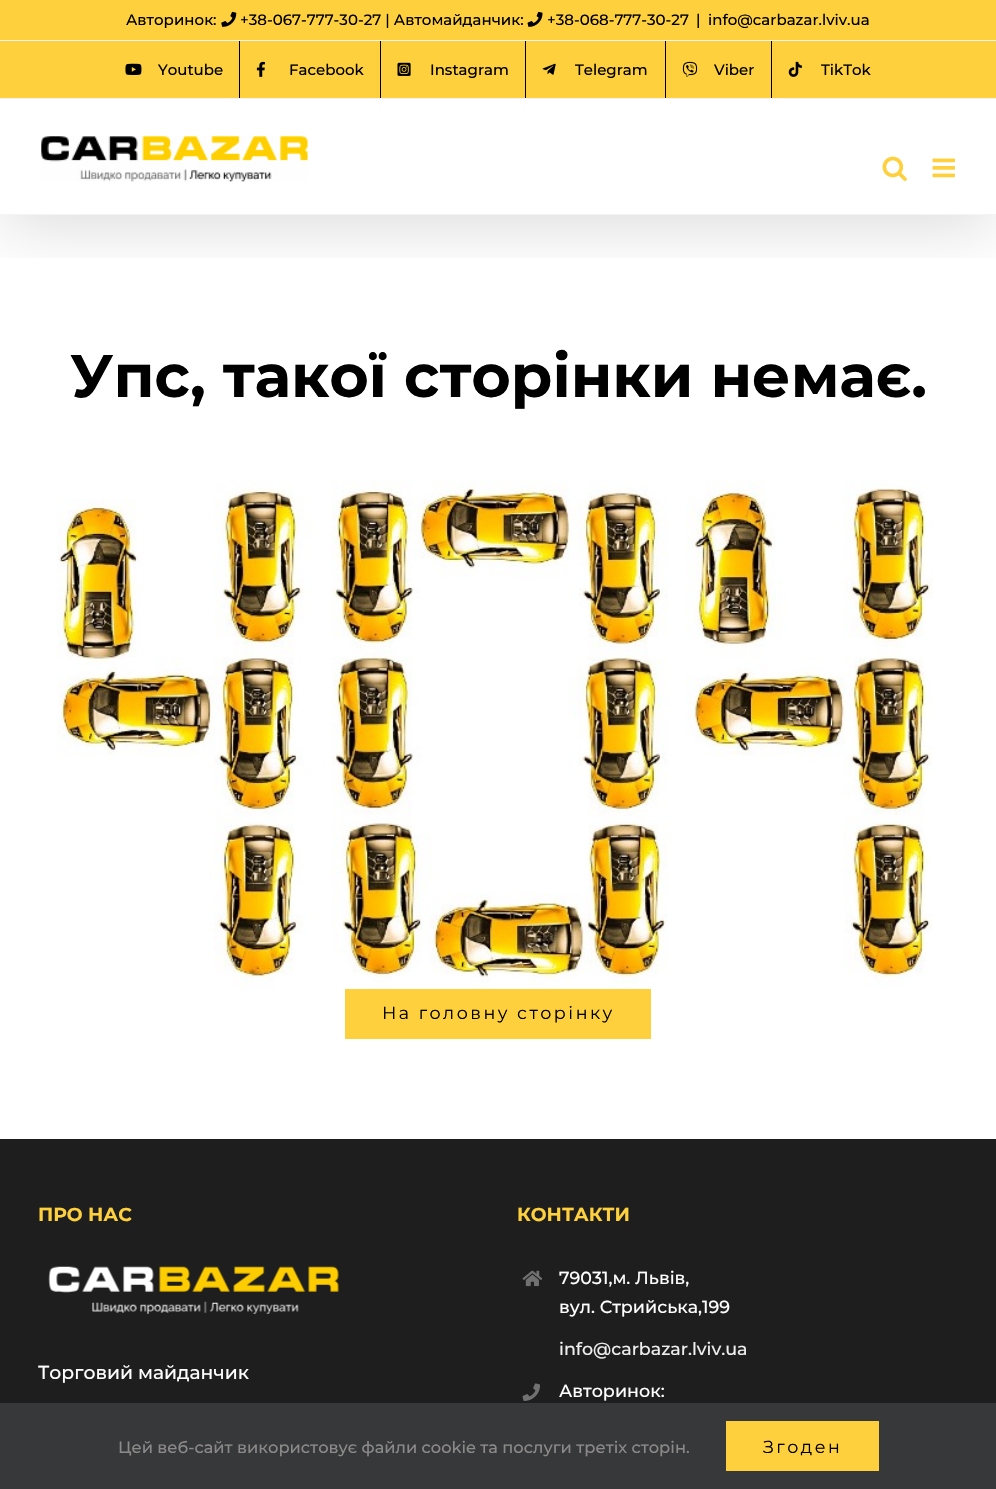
void draw(SkCanvas* canvas) {
    SkPaint paint;
    paint.setAntiAlias(true);
    auto spacedText = [&](const char* s, float x, float y, const SkFont& font, const SkPaint& ink, float letter, float word) {
        std::vector<SkGlyphID> glyphs(font.countText(s, strlen(s), SkTextEncoding::kUTF8));
        std::vector<float> xs(glyphs.size());
        font.textToGlyphs(s, strlen(s), SkTextEncoding::kUTF8, glyphs);
        font.getXPos(glyphs, xs, x);
        float extra = 0;
        for (size_t i = 0; i < glyphs.size(); i++) {
            xs[i] += extra;
            extra += letter + word * (glyphs[i] == font.unicharToGlyph(' '));
        }
        canvas->drawTextBlob(SkTextBlob::MakeFromPosHGlyphs(glyphs, xs, y, font), 0, 0, ink);
    };
    canvas->clear(0xFFFFFFFF);
    canvas->save();
    canvas->clipRect(SkRect::MakeXYWH(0, 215, 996, 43));
    paint.setColor(0x24000000);
    paint.setMaskFilter(SkMaskFilter::MakeBlur(kNormal_SkBlurStyle, 31));
    canvas->drawRect(SkRect::MakeXYWH(3, 15, 991, 210), paint);
    paint.setMaskFilter(nullptr);
    canvas->restore();
    paint.setColor(0xFFFED03D);
    canvas->drawRect(SkRect::MakeXYWH(0, 0, 996, 98), paint);
    paint.setColor(0xFFF4F4F4);
    canvas->drawRect(SkRect::MakeXYWH(0, 98, 996, 1), paint);
    canvas->drawRect(SkRect::MakeXYWH(0, 40, 996, 1), paint);
    SkFont font1(fontMgr->matchFamilyStyle("Montserrat", SkFontStyle(500, SkFontStyle::kNormal_Width, SkFontStyle::kUpright_Slant)), 15);
    font1.setSubpixel(true);
    paint.setColor(0xFF000000);
    canvas->drawString("Авторинок:", 126, 25, font1, paint);
    canvas->drawImageRect(SkImages::DeferredFromEncodedData(SkData::MakeFromFileName("img1.png")), SkRect::MakeXYWH(221, 11, 16, 16), SkSamplingOptions());
    canvas->drawString("+38-067-777-30-27 | Автомайданчик:", 240, 25, font1, paint);
    canvas->drawImageRect(SkImages::DeferredFromEncodedData(SkData::MakeFromFileName("img2.png")), SkRect::MakeXYWH(527, 11, 16, 16), SkSamplingOptions());
    canvas->drawString("+38-068-777-30-27", 547, 25, font1, paint);
    canvas->drawString("|", 696, 25, font1, paint);
    canvas->drawString("info@carbazar.lviv.ua", 708, 25, font1, paint);
    canvas->drawImageRect(SkImages::DeferredFromEncodedData(SkData::MakeFromFileName("img3.png")), SkRect::MakeXYWH(125, 63, 17, 12), SkSamplingOptions());
    canvas->drawString("Youtube", 158, 75, font1, paint);
    canvas->drawRect(SkRect::MakeXYWH(239, 41, 1, 57), paint);
    canvas->drawImageRect(SkImages::DeferredFromEncodedData(SkData::MakeFromFileName("img4.png")), SkRect::MakeXYWH(256, 61, 9, 16), SkSamplingOptions());
    canvas->drawString("Facebook", 289, 75, font1, paint);
    canvas->drawRect(SkRect::MakeXYWH(380, 41, 1, 57), paint);
    canvas->drawImageRect(SkImages::DeferredFromEncodedData(SkData::MakeFromFileName("img5.png")), SkRect::MakeXYWH(397, 62, 14, 14), SkSamplingOptions());
    canvas->drawString("Instagram", 430, 75, font1, paint);
    canvas->drawRect(SkRect::MakeXYWH(525, 41, 1, 57), paint);
    canvas->drawImageRect(SkImages::DeferredFromEncodedData(SkData::MakeFromFileName("img6.png")), SkRect::MakeXYWH(542, 63, 14, 12), SkSamplingOptions());
    canvas->drawString("Telegram", 575, 75, font1, paint);
    canvas->drawRect(SkRect::MakeXYWH(665, 41, 1, 57), paint);
    canvas->drawImageRect(SkImages::DeferredFromEncodedData(SkData::MakeFromFileName("img7.png")), SkRect::MakeXYWH(682, 61, 16, 16), SkSamplingOptions());
    canvas->drawString("Viber", 714, 75, font1, paint);
    canvas->drawRect(SkRect::MakeXYWH(771, 41, 1, 57), paint);
    canvas->drawImageRect(SkImages::DeferredFromEncodedData(SkData::MakeFromFileName("img8.png")), SkRect::MakeXYWH(788, 61, 14, 16), SkSamplingOptions());
    canvas->drawString("TikTok", 821, 75, font1, paint);
    paint.setColor(0xFFF4F4F4);
    canvas->drawRect(SkRect::MakeXYWH(0, 214, 996, 1), paint);
    canvas->drawImageRect(SkImages::DeferredFromEncodedData(SkData::MakeFromFileName("img9.png")), SkRect::MakeXYWH(41, 136, 267, 46), SkSamplingOptions());
    canvas->drawImageRect(SkImages::DeferredFromEncodedData(SkData::MakeFromFileName("img10.png")), SkRect::MakeXYWH(882, 156, 25, 25), SkSamplingOptions());
    canvas->drawImageRect(SkImages::DeferredFromEncodedData(SkData::MakeFromFileName("img11.png")), SkRect::MakeXYWH(932, 158, 23, 20), SkSamplingOptions());
    SkFont font2(fontMgr->matchFamilyStyle("Montserrat", SkFontStyle::Bold()), 60);
    font2.setSubpixel(true);
    paint.setColor(0xFF000000);
    canvas->drawString("Упс, такої сторінки немає.", 70, 397, font2, paint);
    canvas->drawImageRect(SkImages::DeferredFromEncodedData(SkData::MakeFromFileName("img12.png")), SkRect::MakeXYWH(57, 480, 876, 508), SkSamplingOptions());
    paint.setColor(0xFFFED03D);
    canvas->drawRect(SkRect::MakeXYWH(345, 989, 306, 50), paint);
    SkFont font3(fontMgr->matchFamilyStyle("Montserrat", SkFontStyle::Normal()), 17.5f);
    font3.setSubpixel(true);
    paint.setColor(0xFF000000);
    spacedText("На головну сторінку", 382, 1019, font3, paint, 2.5f, 0);
    paint.setColor(0xFF1E1E1E);
    canvas->drawRect(SkRect::MakeXYWH(0, 1139, 996, 264), paint);
    SkFont font4(fontMgr->matchFamilyStyle("Montserrat", SkFontStyle::Bold()), 18.75f);
    font4.setSubpixel(true);
    paint.setColor(0xFFFED03D);
    canvas->drawString("ПРО НАС", 38, 1221, font4, paint);
    canvas->drawImageRect(SkImages::DeferredFromEncodedData(SkData::MakeFromFileName("img13.png")), SkRect::MakeXYWH(48, 1266, 291, 48), SkSamplingOptions());
    SkFont font5(fontMgr->matchFamilyStyle("Montserrat", SkFontStyle(500, SkFontStyle::kNormal_Width, SkFontStyle::kUpright_Slant)), 18.75f);
    font5.setSubpixel(true);
    paint.setColor(0xFFFFFFFF);
    canvas->drawString("Торговий майданчик", 38, 1379, font5, paint);
    paint.setColor(0xFFFED03D);
    canvas->drawString("КОНТАКТИ", 517, 1221, font4, paint);
    canvas->drawImageRect(SkImages::DeferredFromEncodedData(SkData::MakeFromFileName("img14.png")), SkRect::MakeXYWH(522, 1270, 21, 17), SkSamplingOptions());
    SkFont font6(fontMgr->matchFamilyStyle("Montserrat", SkFontStyle(500, SkFontStyle::kNormal_Width, SkFontStyle::kUpright_Slant)), 17.5f);
    font6.setSubpixel(true);
    paint.setColor(0xFFFFFFFF);
    canvas->drawString("79031,м. Львів,", 559, 1284, font6, paint);
    canvas->drawString("вул. Стрийська,199", 559, 1313, font6, paint);
    paint.setColor(0xFFEFEFEF);
    canvas->drawString("info@carbazar.lviv.ua", 559, 1355, font6, paint);
    canvas->drawImageRect(SkImages::DeferredFromEncodedData(SkData::MakeFromFileName("img15.png")), SkRect::MakeXYWH(522, 1383, 18, 18), SkSamplingOptions());
    paint.setColor(0xFFFFFFFF);
    canvas->drawString("Авторинок:", 559, 1397, font6, paint);
    paint.setColor(0xFF363839);
    canvas->drawRect(SkRect::MakeXYWH(0, 1403, 996, 86), paint);
    SkFont font7(fontMgr->matchFamilyStyle("Montserrat", SkFontStyle(500, SkFontStyle::kNormal_Width, SkFontStyle::kUpright_Slant)), 16.25f);
    font7.setSubpixel(true);
    paint.setColor(0xFF8C8989);
    canvas->drawString("Цей веб-сайт використовує файли cookie та послуги третіх сторін.", 118, 1453, font7, paint);
    paint.setColor(0xFFFED03D);
    canvas->drawRect(SkRect::MakeXYWH(726, 1421, 153, 50), paint);
    paint.setColor(0xFF000000);
    spacedText("Згоден", 763, 1453, font3, paint, 2.5f, 0);
}
